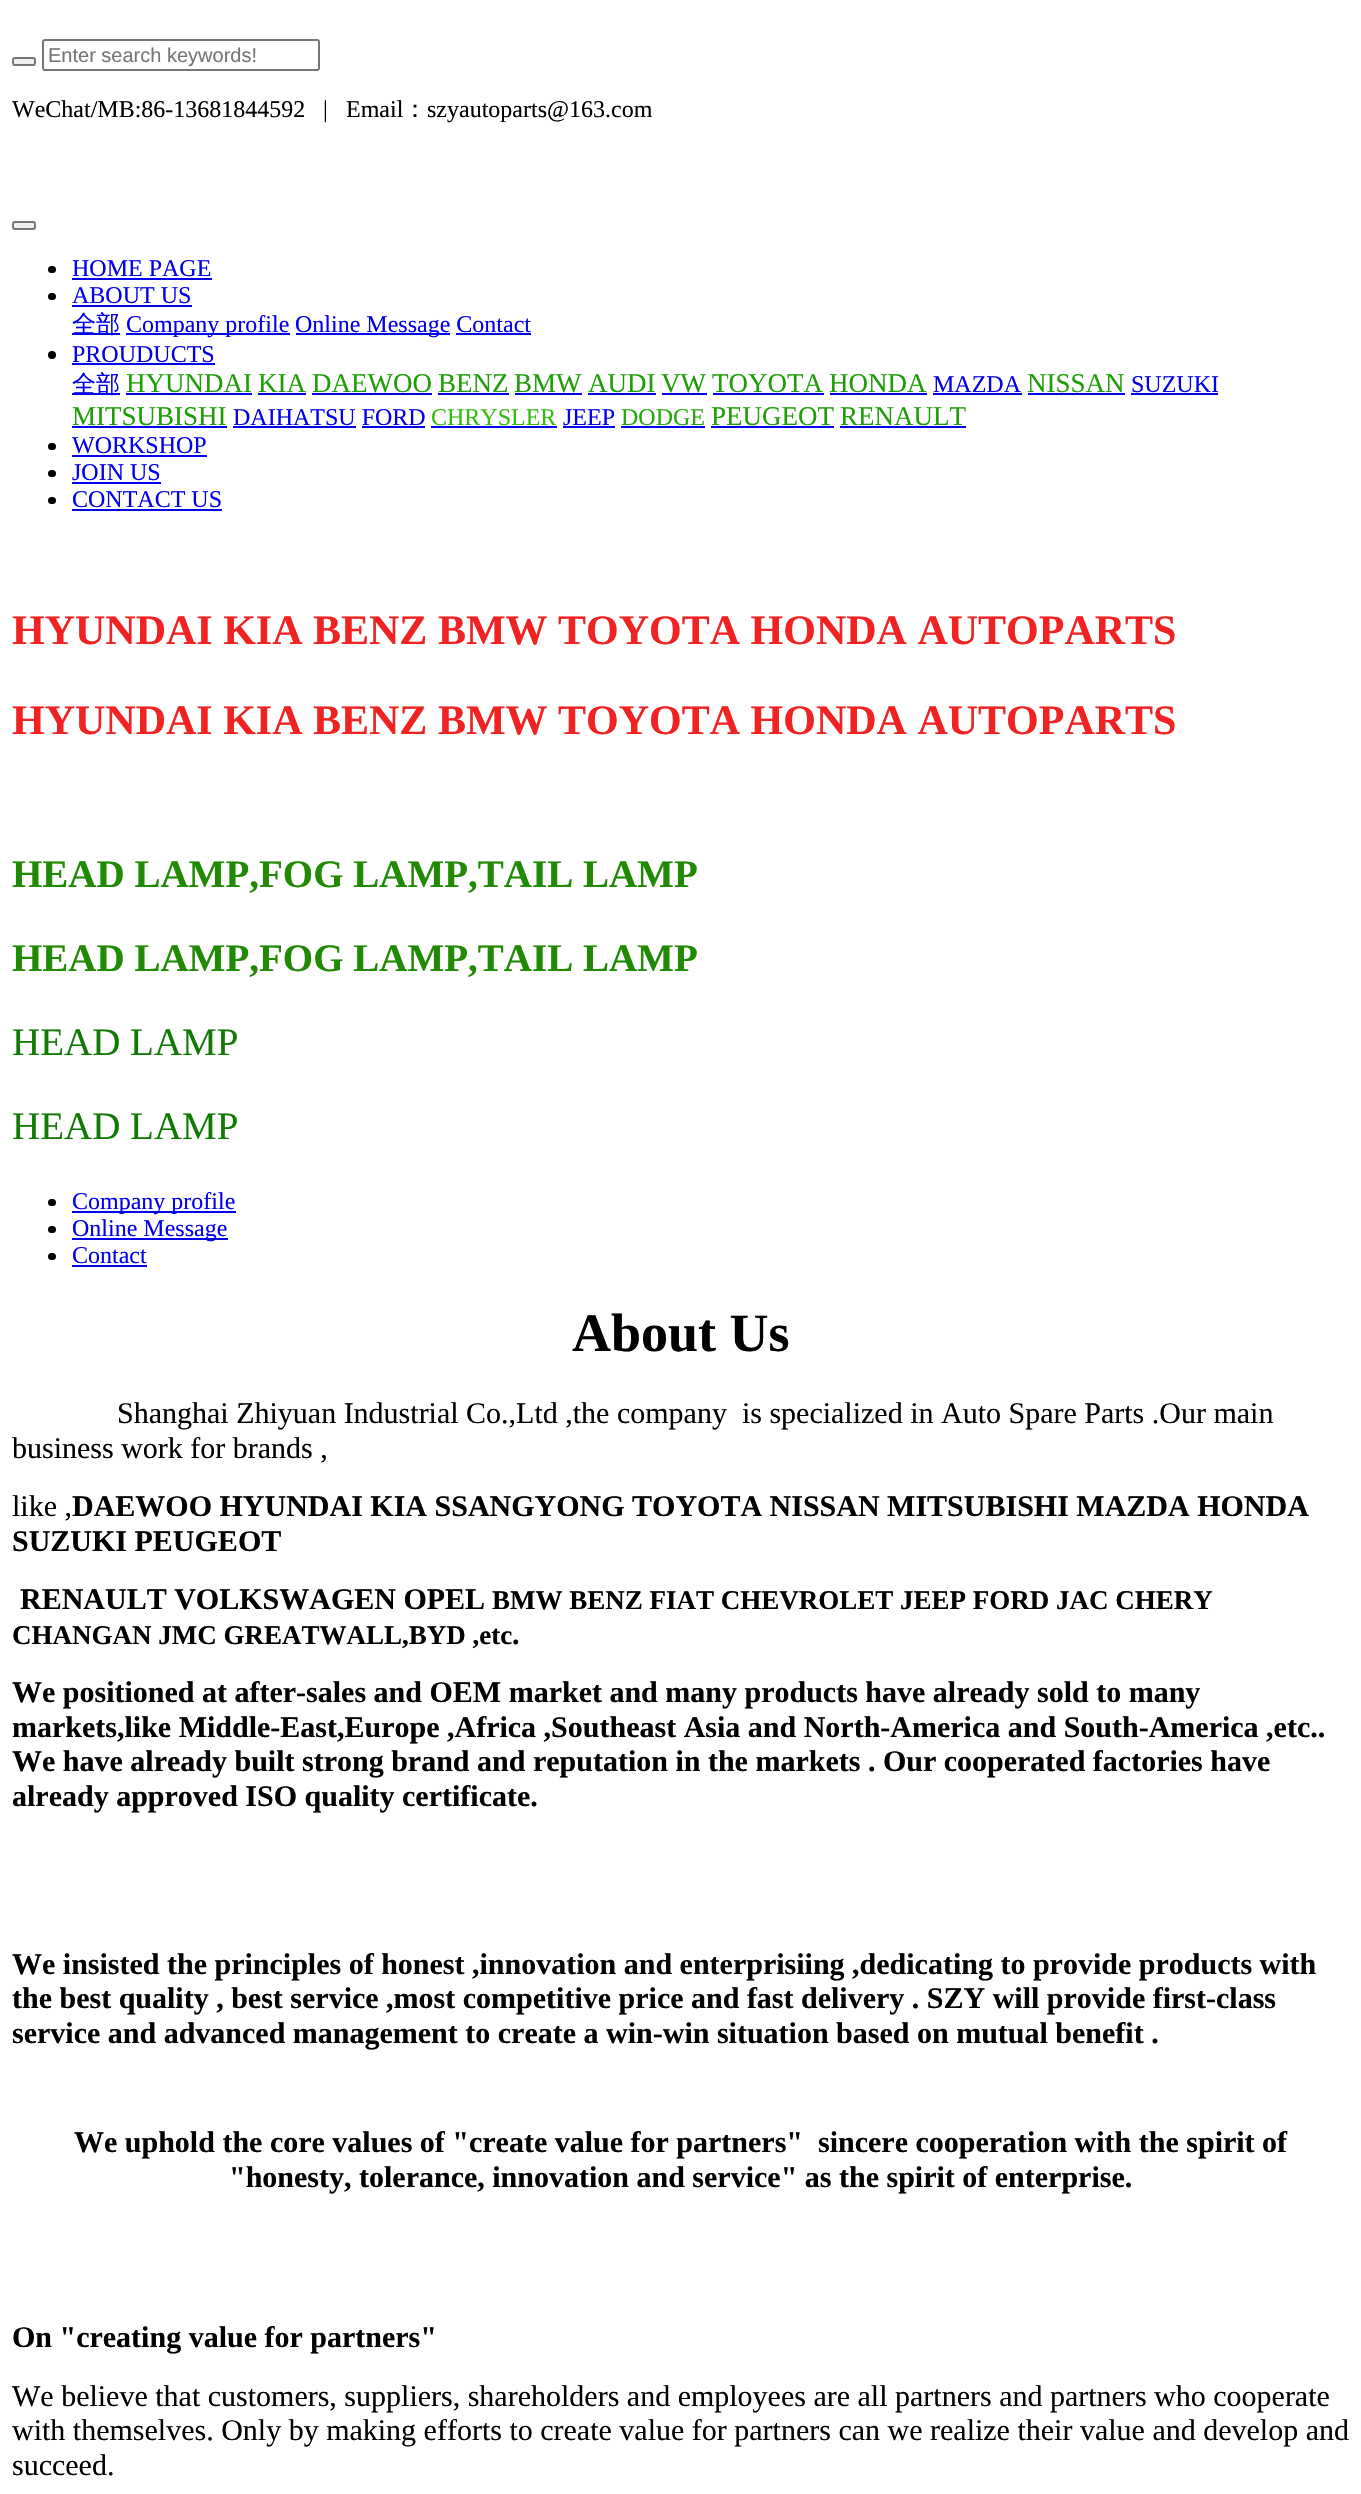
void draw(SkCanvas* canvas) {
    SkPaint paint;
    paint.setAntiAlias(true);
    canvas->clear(0xFFFFFFFF);
    paint.setColor(0xFFEFEFEF);
    canvas->drawRoundRect(SkRect::MakeXYWH(13, 58, 22, 7), 2, 2, paint);
    paint.setStyle(SkPaint::kStroke_Style);
    paint.setStrokeWidth(2);
    paint.setColor(0xFF767676);
    canvas->drawRoundRect(SkRect::MakeXYWH(13, 58, 22, 7), 2, 2, paint);
    canvas->drawRoundRect(SkRect::MakeXYWH(43, 40, 276, 30), 2, 2, paint);
    SkFont font1(fontMgr->matchFamilyStyle("Liberation Sans", SkFontStyle::Normal()), 20);
    font1.setSubpixel(true);
    paint.setStyle(SkPaint::kFill_Style);
    paint.setColor(0xFF757575);
    canvas->drawString("Enter search keywords!", 48, 62, font1, paint);
    SkFont font2(fontMgr->matchFamilyStyle("Liberation Serif", SkFontStyle::Normal()), 24);
    font2.setSubpixel(true);
    paint.setColor(0xFF000000);
    canvas->drawString("WeChat/MB:86-13681844592", 12, 117, font2, paint);
    canvas->drawString("|", 323, 117, font2, paint);
    canvas->drawString("Email", 346, 117, font2, paint);
    SkFont font3(fontMgr->matchFamilyStyle("WenQuanYi Zen Hei", SkFontStyle(500, SkFontStyle::kNormal_Width, SkFontStyle::kUpright_Slant)), 24);
    font3.setSubpixel(true);
    canvas->drawString("：", 403, 117, font3, paint);
    canvas->drawString("szyautoparts@163.com", 427, 117, font2, paint);
    paint.setColor(0xFFEFEFEF);
    canvas->drawRoundRect(SkRect::MakeXYWH(13, 222, 22, 7), 2, 2, paint);
    paint.setStyle(SkPaint::kStroke_Style);
    paint.setColor(0xFF767676);
    canvas->drawRoundRect(SkRect::MakeXYWH(13, 222, 22, 7), 2, 2, paint);
    paint.setStyle(SkPaint::kFill_Style);
    paint.setColor(0xFF000000);
    canvas->drawRoundRect(SkRect::MakeXYWH(48, 266, 8, 7), 3.5f, 3.5f, paint);
    paint.setColor(0xFF0000EE);
    canvas->drawString("HOME PAGE", 72, 276, font2, paint);
    canvas->drawRect(SkRect::MakeXYWH(72, 278, 140, 2), paint);
    paint.setColor(0xFF000000);
    canvas->drawRoundRect(SkRect::MakeXYWH(48, 293, 8, 7), 3.5f, 3.5f, paint);
    paint.setColor(0xFF0000EE);
    canvas->drawString("ABOUT US", 72, 303, font2, paint);
    canvas->drawRect(SkRect::MakeXYWH(72, 305, 120, 2), paint);
    canvas->drawRect(SkRect::MakeXYWH(72, 333, 48, 2), paint);
    canvas->drawString("全部", 72, 332, font3, paint);
    canvas->drawRect(SkRect::MakeXYWH(126, 333, 164, 2), paint);
    canvas->drawString("Company profile", 126, 332, font2, paint);
    canvas->drawRect(SkRect::MakeXYWH(296, 333, 154, 2), paint);
    canvas->drawString("Online Message Contact", 295, 332, font2, paint);
    canvas->drawRect(SkRect::MakeXYWH(456, 333, 75, 2), paint);
    paint.setColor(0xFF000000);
    canvas->drawCircle(52, 355, 4, paint);
    paint.setColor(0xFF0000EE);
    canvas->drawString("PROUDUCTS", 72, 362, font2, paint);
    canvas->drawRect(SkRect::MakeXYWH(72, 363, 143, 2), paint);
    canvas->drawRect(SkRect::MakeXYWH(72, 393, 48, 2), paint);
    canvas->drawString("全部", 72, 392, font3, paint);
    SkFont font4(fontMgr->matchFamilyStyle("Liberation Serif", SkFontStyle::Normal()), 27);
    font4.setSubpixel(true);
    paint.setColor(0xFF1D9E06);
    canvas->drawString("HYUNDAI", 126, 392, font4, paint);
    paint.setColor(0xFF0000EE);
    canvas->drawRect(SkRect::MakeXYWH(126, 393, 126, 2), paint);
    paint.setColor(0xFF1D9E06);
    canvas->drawString("KIA", 258, 392, font4, paint);
    paint.setColor(0xFF0000EE);
    canvas->drawRect(SkRect::MakeXYWH(258, 393, 48, 2), paint);
    paint.setColor(0xFF1D9E06);
    canvas->drawString("DAEWOO", 312, 392, font4, paint);
    paint.setColor(0xFF0000EE);
    canvas->drawRect(SkRect::MakeXYWH(312, 393, 120, 2), paint);
    paint.setColor(0xFF1D9E06);
    canvas->drawString("BENZ", 438, 392, font4, paint);
    paint.setColor(0xFF0000EE);
    canvas->drawRect(SkRect::MakeXYWH(438, 393, 71, 2), paint);
    paint.setColor(0xFF1D9E06);
    canvas->drawString("BMW", 514, 392, font4, paint);
    paint.setColor(0xFF0000EE);
    canvas->drawRect(SkRect::MakeXYWH(515, 393, 67, 2), paint);
    paint.setColor(0xFF1D9E06);
    canvas->drawString("AUDI", 588, 392, font4, paint);
    paint.setColor(0xFF0000EE);
    canvas->drawRect(SkRect::MakeXYWH(588, 393, 68, 2), paint);
    paint.setColor(0xFF1D9E06);
    canvas->drawString("VW", 661, 392, font4, paint);
    paint.setColor(0xFF0000EE);
    canvas->drawRect(SkRect::MakeXYWH(662, 393, 45, 2), paint);
    paint.setColor(0xFF1D9E06);
    canvas->drawString("TOYOTA", 712, 392, font4, paint);
    paint.setColor(0xFF0000EE);
    canvas->drawRect(SkRect::MakeXYWH(713, 393, 111, 2), paint);
    paint.setColor(0xFF1D9E06);
    canvas->drawString("HONDA", 829, 392, font4, paint);
    paint.setColor(0xFF0000EE);
    canvas->drawRect(SkRect::MakeXYWH(830, 393, 97, 2), paint);
    canvas->drawString("MAZDA", 933, 392, font2, paint);
    canvas->drawRect(SkRect::MakeXYWH(933, 393, 89, 2), paint);
    paint.setColor(0xFF1D9E06);
    canvas->drawString("NISSAN", 1027, 392, font4, paint);
    paint.setColor(0xFF0000EE);
    canvas->drawRect(SkRect::MakeXYWH(1028, 393, 97, 2), paint);
    canvas->drawString("SUZUKI", 1131, 392, font2, paint);
    canvas->drawRect(SkRect::MakeXYWH(1131, 393, 87, 2), paint);
    paint.setColor(0xFF1D9E06);
    canvas->drawString("MITSUBISHI", 72, 425, font4, paint);
    paint.setColor(0xFF0000EE);
    canvas->drawRect(SkRect::MakeXYWH(72, 426, 155, 2), paint);
    canvas->drawString("DAIHATSU FORD", 233, 425, font2, paint);
    canvas->drawRect(SkRect::MakeXYWH(233, 426, 123, 2), paint);
    paint.setColor(0xFF32BD0F);
    canvas->drawString("CHRYSLER", 431, 425, font2, paint);
    paint.setColor(0xFF0000EE);
    canvas->drawRect(SkRect::MakeXYWH(431, 426, 126, 2), paint);
    canvas->drawString("JEEP", 563, 425, font2, paint);
    canvas->drawRect(SkRect::MakeXYWH(563, 426, 52, 2), paint);
    paint.setColor(0xFF26A80F);
    canvas->drawString("DODGE", 621, 425, font2, paint);
    paint.setColor(0xFF0000EE);
    canvas->drawRect(SkRect::MakeXYWH(621, 426, 84, 2), paint);
    paint.setColor(0xFF1D9E06);
    canvas->drawString("PEUGEOT", 711, 425, font4, paint);
    paint.setColor(0xFF0000EE);
    canvas->drawRect(SkRect::MakeXYWH(711, 426, 123, 2), paint);
    paint.setColor(0xFF1D9E06);
    canvas->drawString("RENAULT", 840, 425, font4, paint);
    paint.setColor(0xFF0000EE);
    canvas->drawRect(SkRect::MakeXYWH(840, 426, 126, 2), paint);
    canvas->drawRect(SkRect::MakeXYWH(362, 426, 63, 2), paint);
    paint.setColor(0xFF000000);
    canvas->drawRoundRect(SkRect::MakeXYWH(48, 443, 8, 7), 3.5f, 3.5f, paint);
    paint.setColor(0xFF0000EE);
    canvas->drawString("WORKSHOP", 72, 453, font2, paint);
    canvas->drawRect(SkRect::MakeXYWH(72, 455, 135, 2), paint);
    paint.setColor(0xFF000000);
    canvas->drawRoundRect(SkRect::MakeXYWH(48, 470, 8, 7), 3.5f, 3.5f, paint);
    paint.setColor(0xFF0000EE);
    canvas->drawString("JOIN US", 72, 480, font2, paint);
    canvas->drawRect(SkRect::MakeXYWH(72, 482, 89, 2), paint);
    paint.setColor(0xFF000000);
    canvas->drawRoundRect(SkRect::MakeXYWH(48, 497, 8, 7), 3.5f, 3.5f, paint);
    paint.setColor(0xFF0000EE);
    canvas->drawString("CONTACT US", 72, 507, font2, paint);
    canvas->drawRect(SkRect::MakeXYWH(72, 509, 150, 2), paint);
    SkFont font5(fontMgr->matchFamilyStyle("Liberation Serif", SkFontStyle::Bold()), 42);
    font5.setSubpixel(true);
    paint.setColor(0xFFF02222);
    canvas->drawString("HYUNDAI KIA BENZ BMW TOYOTA HONDA AUTOPARTS", 12, 644, font5, paint);
    canvas->drawString("HYUNDAI KIA BENZ BMW TOYOTA HONDA AUTOPARTS", 12, 734, font5, paint);
    SkFont font6(fontMgr->matchFamilyStyle("Liberation Serif", SkFontStyle::Bold()), 39);
    font6.setSubpixel(true);
    paint.setColor(0xFF208A03);
    canvas->drawString("HEAD LAMP,FOG LAMP,TAIL LAMP", 12, 887, font6, paint);
    canvas->drawString("HEAD LAMP,FOG LAMP,TAIL LAMP", 12, 971, font6, paint);
    SkFont font7(fontMgr->matchFamilyStyle("Liberation Serif", SkFontStyle::Normal()), 39);
    font7.setSubpixel(true);
    paint.setColor(0xFF117A05);
    canvas->drawString("HEAD LAMP", 12, 1055, font7, paint);
    canvas->drawString("HEAD LAMP", 12, 1139, font7, paint);
    paint.setColor(0xFF000000);
    canvas->drawRoundRect(SkRect::MakeXYWH(48, 1199, 8, 7), 3.5f, 3.5f, paint);
    paint.setColor(0xFF0000EE);
    canvas->drawRect(SkRect::MakeXYWH(72, 1211, 164, 2), paint);
    canvas->drawString("Company profile", 72, 1209, font2, paint);
    paint.setColor(0xFF000000);
    canvas->drawRoundRect(SkRect::MakeXYWH(48, 1226, 8, 7), 3.5f, 3.5f, paint);
    paint.setColor(0xFF0000EE);
    canvas->drawRect(SkRect::MakeXYWH(72, 1238, 156, 2), paint);
    canvas->drawString("Online Message", 72, 1236, font2, paint);
    paint.setColor(0xFF000000);
    canvas->drawRoundRect(SkRect::MakeXYWH(48, 1253, 8, 7), 3.5f, 3.5f, paint);
    paint.setColor(0xFF0000EE);
    canvas->drawString("Contact", 72, 1263, font2, paint);
    canvas->drawRect(SkRect::MakeXYWH(72, 1265, 75, 2), paint);
    SkFont font8(fontMgr->matchFamilyStyle("Liberation Serif", SkFontStyle::Bold()), 54);
    font8.setSubpixel(true);
    paint.setColor(0xFF000000);
    canvas->drawString("About Us", 572, 1351, font8, paint);
    SkFont font9(fontMgr->matchFamilyStyle("Liberation Serif", SkFontStyle::Normal()), 30);
    font9.setSubpixel(true);
    canvas->drawString("Shanghai Zhiyuan Industrial Co.,Ltd ,the company  is specialized in Auto Spare Parts .Our main", 117, 1423, font9, paint);
    canvas->drawString("business work for brands ,", 12, 1458, font9, paint);
    canvas->drawString("like ,", 12, 1516, font9, paint);
    SkFont font10(fontMgr->matchFamilyStyle("Liberation Serif", SkFontStyle::Bold()), 30);
    font10.setSubpixel(true);
    canvas->drawString("DAEWOO HYUNDAI KIA SSANGYONG TOYOTA NISSAN MITSUBISHI MAZDA HONDA", 72, 1516, font10, paint);
    canvas->drawString("SUZUKI PEUGEOT", 12, 1551, font10, paint);
    canvas->drawString("RENAULT VOLKSWAGEN OPEL", 20, 1609, font10, paint);
    SkFont font11(fontMgr->matchFamilyStyle("Liberation Serif", SkFontStyle::Bold()), 27);
    font11.setSubpixel(true);
    canvas->drawString("BMW BENZ FIAT CHEVROLET JEEP FORD JAC CHERY", 492, 1609, font11, paint);
    canvas->drawString("CHANGAN JMC GREATWALL,BYD ,etc", 12, 1644, font11, paint);
    canvas->drawString(".", 512, 1644, font10, paint);
    canvas->drawString("We positioned at after-sales and OEM market and many products have already sold to many", 12, 1702, font10, paint);
    canvas->drawString("markets,like Middle-East,Europe ,Africa ,Southeast Asia and North-America and South-America ,etc..", 12, 1737, font10, paint);
    canvas->drawString("We have already built strong brand and reputation in the markets . Our cooperated factories have", 12, 1771, font10, paint);
    canvas->drawString("already approved ISO quality certificate.", 12, 1806, font10, paint);
    canvas->drawString("We insisted the principles of honest ,innovation and enterprisiing ,dedicating to provide products with", 12, 1974, font10, paint);
    canvas->drawString("the best quality , best service ,most competitive price and fast delivery . SZY will provide first-class", 12, 2008, font10, paint);
    canvas->drawString("service and advanced management to create a win-win situation based on mutual benefit .", 12, 2043, font10, paint);
    canvas->drawString("We uphold the core values of \"create value for partners\"  sincere cooperation with the spirit of", 74, 2152, font10, paint);
    canvas->drawString("\"honesty, tolerance, innovation and service\" as the spirit of enterprise.", 229, 2187, font10, paint);
    canvas->drawString("On \"creating value for partners\"", 12, 2347, font10, paint);
    canvas->drawString("We believe that customers, suppliers, shareholders and employees are all partners and partners who cooperate", 12, 2406, font9, paint);
    canvas->drawString("with themselves. Only by making efforts to create value for partners can we realize their value and develop and", 12, 2440, font9, paint);
    canvas->drawString("succeed.", 12, 2475, font9, paint);
}
